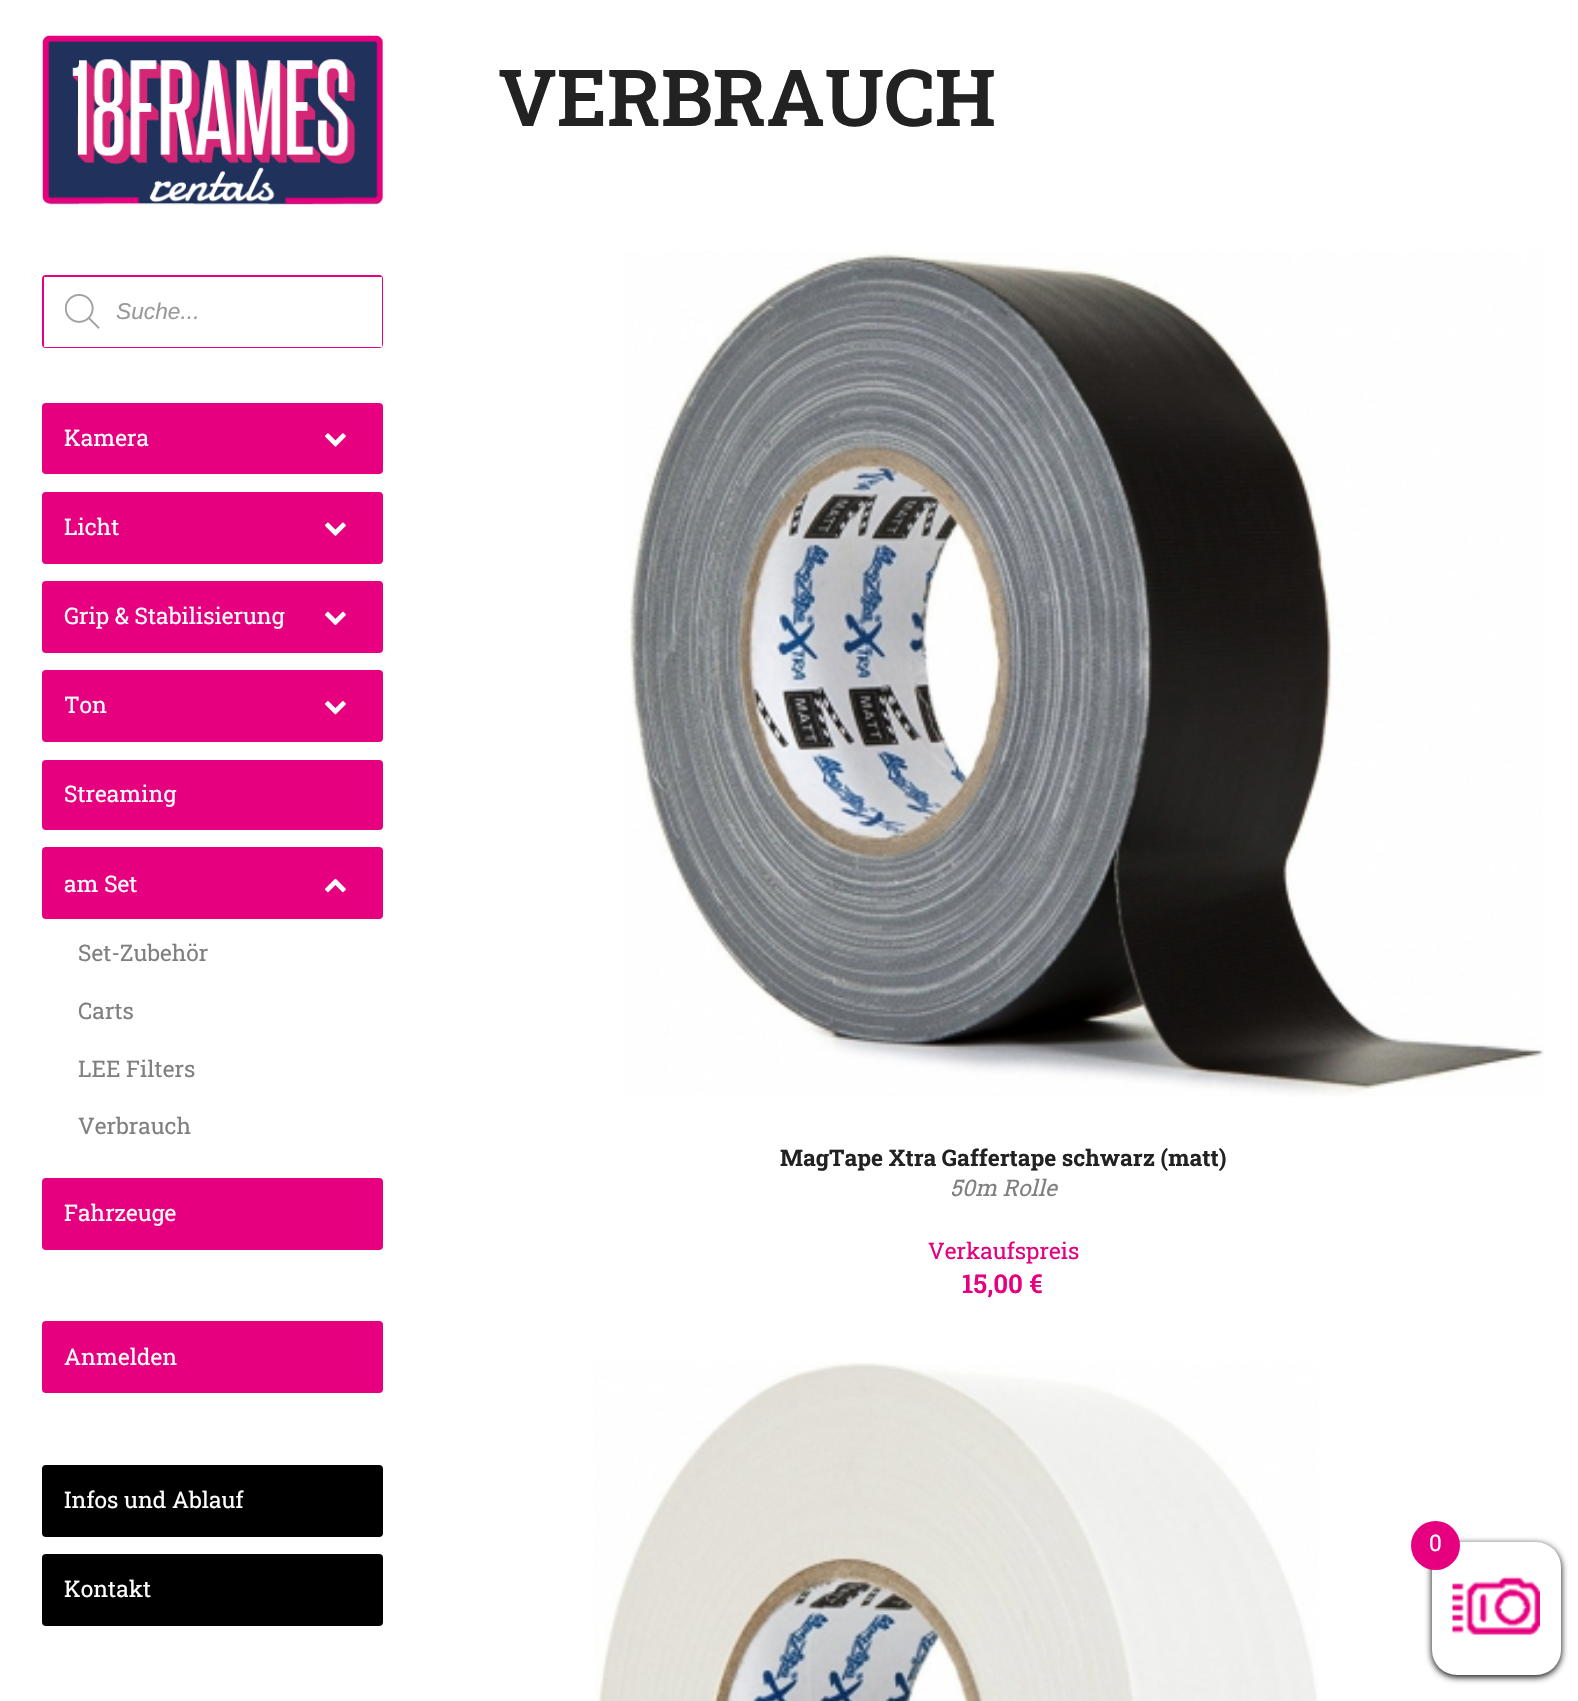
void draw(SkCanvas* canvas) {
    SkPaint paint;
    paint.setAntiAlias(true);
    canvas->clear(0xFFFFFFFF);
    canvas->drawImageRect(SkImages::DeferredFromEncodedData(SkData::MakeFromFileName("img1.png")), SkRect::MakeXYWH(42, 35, 341, 170), SkSamplingOptions());
    paint.setStyle(SkPaint::kStroke_Style);
    paint.setStrokeWidth(2);
    paint.setColor(0xFFE6007F);
    canvas->drawRoundRect(SkRect::MakeXYWH(43, 276, 339, 71), 3, 3, paint);
    paint.setStyle(SkPaint::kFill_Style);
    paint.setColor(0xFFFFFFFF);
    canvas->drawRect(SkRect::MakeXYWH(44, 277, 338, 70), paint);
    canvas->drawImageRect(SkImages::DeferredFromEncodedData(SkData::MakeFromFileName("img2.png")), SkRect::MakeXYWH(65, 294, 35, 35), SkSamplingOptions());
    SkFont font1(fontMgr->matchFamilyStyle("Liberation Sans", SkFontStyle::Italic()), 22.75f);
    font1.setSubpixel(true);
    paint.setColor(0xFF999999);
    canvas->drawString("Suche...", 116, 319, font1, paint);
    paint.setColor(0xFFE6007F);
    canvas->drawRoundRect(SkRect::MakeXYWH(42, 403, 341, 71), 4, 4, paint);
    SkFont font2(fontMgr->matchFamilyStyle("Roboto Slab", SkFontStyle::Normal()), 22.75f);
    font2.setSubpixel(true);
    paint.setColor(0xFFFFFFFF);
    canvas->drawString("Kamera", 64, 446, font2, paint);
    canvas->drawImageRect(SkImages::DeferredFromEncodedData(SkData::MakeFromFileName("img3.png")), SkRect::MakeXYWH(325, 433, 21, 14), SkSamplingOptions());
    paint.setColor(0xFFE6007F);
    canvas->drawRoundRect(SkRect::MakeXYWH(42, 492, 341, 72), 4, 4, paint);
    paint.setColor(0xFFFFFFFF);
    canvas->drawString("Licht", 64, 535, font2, paint);
    canvas->drawImageRect(SkImages::DeferredFromEncodedData(SkData::MakeFromFileName("img4.png")), SkRect::MakeXYWH(325, 522, 21, 14), SkSamplingOptions());
    paint.setColor(0xFFE6007F);
    canvas->drawRoundRect(SkRect::MakeXYWH(42, 581, 341, 72), 4, 4, paint);
    paint.setColor(0xFFFFFFFF);
    canvas->drawString("Grip & Stabilisierung", 64, 624, font2, paint);
    canvas->drawImageRect(SkImages::DeferredFromEncodedData(SkData::MakeFromFileName("img5.png")), SkRect::MakeXYWH(325, 611, 21, 15), SkSamplingOptions());
    paint.setColor(0xFFE6007F);
    canvas->drawRoundRect(SkRect::MakeXYWH(42, 670, 341, 72), 4, 4, paint);
    paint.setColor(0xFFFFFFFF);
    canvas->drawString("Ton", 64, 713, font2, paint);
    canvas->drawImageRect(SkImages::DeferredFromEncodedData(SkData::MakeFromFileName("img6.png")), SkRect::MakeXYWH(325, 701, 21, 14), SkSamplingOptions());
    paint.setColor(0xFFE6007F);
    canvas->drawRoundRect(SkRect::MakeXYWH(42, 760, 341, 70), 4, 4, paint);
    paint.setColor(0xFFFFFFFF);
    canvas->drawString("Streaming", 64, 802, font2, paint);
    paint.setColor(0xFFE6007F);
    canvas->drawRoundRect(SkRect::MakeXYWH(42, 847, 341, 72), 4, 4, paint);
    paint.setColor(0xFFFFFFFF);
    canvas->drawString("am Set", 64, 892, font2, paint);
    canvas->drawImageRect(SkImages::DeferredFromEncodedData(SkData::MakeFromFileName("img7.png")), SkRect::MakeXYWH(325, 878, 21, 15), SkSamplingOptions());
    paint.setColor(0xFF808080);
    canvas->drawString("Set-Zubehör", 78, 961, font2, paint);
    canvas->drawString("Carts", 78, 1019, font2, paint);
    canvas->drawString("LEE Filters", 78, 1077, font2, paint);
    canvas->drawString("Verbrauch", 78, 1134, font2, paint);
    paint.setColor(0xFFE6007F);
    canvas->drawRoundRect(SkRect::MakeXYWH(42, 1178, 341, 72), 4, 4, paint);
    paint.setColor(0xFFFFFFFF);
    canvas->drawString("Fahrzeuge", 64, 1221, font2, paint);
    paint.setColor(0xFFE6007F);
    canvas->drawRoundRect(SkRect::MakeXYWH(42, 1321, 341, 72), 4, 4, paint);
    paint.setColor(0xFFFFFFFF);
    canvas->drawString("Anmelden", 64, 1365, font2, paint);
    paint.setColor(0xFF000000);
    canvas->drawRoundRect(SkRect::MakeXYWH(42, 1465, 341, 72), 4, 4, paint);
    paint.setColor(0xFFFFFFFF);
    canvas->drawString("Infos und Ablauf", 64, 1508, font2, paint);
    paint.setColor(0xFF000000);
    canvas->drawRoundRect(SkRect::MakeXYWH(42, 1554, 341, 72), 4, 4, paint);
    paint.setColor(0xFFFFFFFF);
    canvas->drawString("Kontakt", 64, 1597, font2, paint);
    SkFont font3(fontMgr->matchFamilyStyle("Roboto Slab", SkFontStyle(600, SkFontStyle::kNormal_Width, SkFontStyle::kUpright_Slant)), 78.75f);
    font3.setSubpixel(true);
    paint.setColor(0xFF222222);
    canvas->drawString("VERBRAUCH", 498, 126, font3, paint);
    canvas->drawImageRect(SkImages::DeferredFromEncodedData(SkData::MakeFromFileName("img8.png")), SkRect::MakeXYWH(624, 251, 920, 846), SkSamplingOptions());
    SkFont font4(fontMgr->matchFamilyStyle("Roboto Slab", SkFontStyle::Bold()), 22.75f);
    font4.setSubpixel(true);
    canvas->drawString("MagTape Xtra Gaffertape schwarz (matt)", 780, 1166, font4, paint);
    SkFont font5(fontMgr->matchFamilyStyle("Roboto Slab", SkFontStyle::Italic()), 22.75f);
    font5.setSubpixel(true);
    paint.setColor(0xFF808080);
    canvas->drawString("50m Rolle", 950, 1196, font5, paint);
    paint.setColor(0xFFE6007F);
    canvas->drawString("Verkaufspreis", 928, 1259, font2, paint);
    SkFont font6(fontMgr->matchFamilyStyle("Roboto Slab", SkFontStyle(600, SkFontStyle::kNormal_Width, SkFontStyle::kUpright_Slant)), 26);
    font6.setSubpixel(true);
    canvas->drawString("15,00 €", 962, 1293, font6, paint);
    canvas->drawImageRect(SkImages::DeferredFromEncodedData(SkData::MakeFromFileName("img9.png")), SkRect::MakeXYWH(594, 1362, 724, 339), SkSamplingOptions());
    paint.setColor(0xFF000000);
    paint.setMaskFilter(SkMaskFilter::MakeBlur(kNormal_SkBlurStyle, 3.5f));
    canvas->drawRoundRect(SkRect::MakeXYWH(1432, 1544, 129, 133), 25, 25, paint);
    paint.setMaskFilter(nullptr);
    paint.setColor(0xFFFFFFFF);
    canvas->drawRoundRect(SkRect::MakeXYWH(1432, 1542, 129, 133), 25, 25, paint);
    paint.setColor(0xFFE6007F);
    canvas->drawCircle(1435.5f, 1545.5f, 24.5f, paint);
    SkFont font7(fontMgr->matchFamilyStyle("Roboto", SkFontStyle::Normal()), 22.75f);
    font7.setSubpixel(true);
    paint.setColor(0xFFFFFFFF);
    canvas->drawString("0", 1429, 1551, font7, paint);
    canvas->drawImageRect(SkImages::DeferredFromEncodedData(SkData::MakeFromFileName("img10.png")), SkRect::MakeXYWH(1452, 1576, 88, 59), SkSamplingOptions());
}
